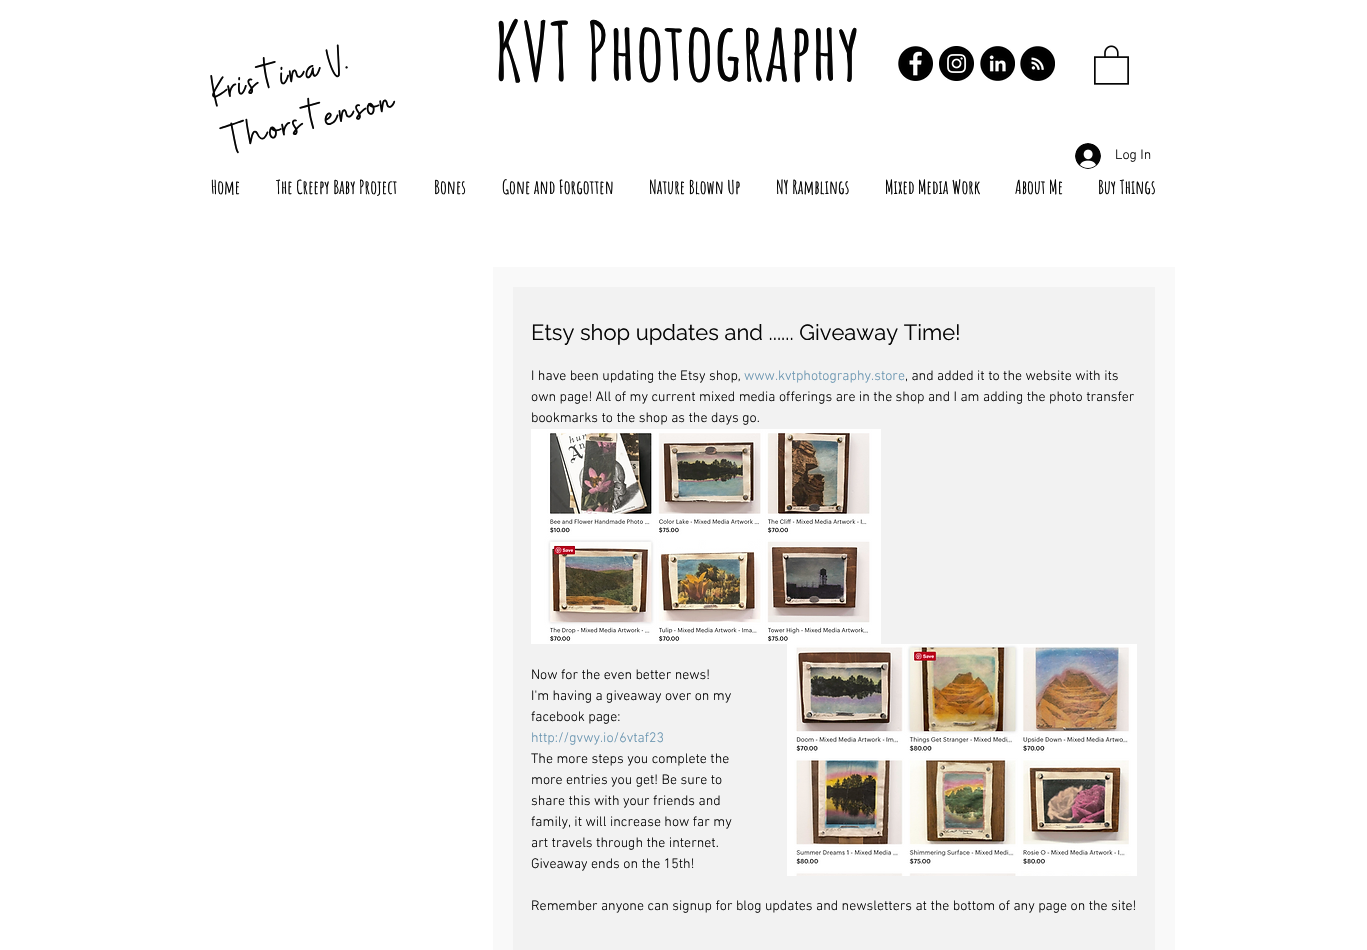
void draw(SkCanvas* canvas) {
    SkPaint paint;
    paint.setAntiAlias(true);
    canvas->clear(0xFFFFFFFF);
    SkFont font1(fontMgr->matchFamilyStyle("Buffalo", SkFontStyle::Normal()), 44);
    font1.setSubpixel(true);
    paint.setColor(0xFF050505);
    canvas->save();
    canvas->rotate(-13.6f, 215, 107);
    canvas->drawString("Kristina V.", 215, 107, font1, paint);
    canvas->restore();
    canvas->save();
    canvas->rotate(-13.6f, 226, 156);
    canvas->drawString("Thorstenson", 226, 156, font1, paint);
    canvas->restore();
    SkFont font2(fontMgr->matchFamilyStyle("Amatic SC", SkFontStyle::Bold()), 80);
    font2.setSubpixel(true);
    canvas->drawString("KVT Photography", 494, 81, font2, paint);
    canvas->drawImageRect(SkImages::DeferredFromEncodedData(SkData::MakeFromFileName("img1.png")), SkRect::MakeXYWH(898, 46, 35, 35), SkSamplingOptions());
    canvas->drawImageRect(SkImages::DeferredFromEncodedData(SkData::MakeFromFileName("img2.png")), SkRect::MakeXYWH(939, 46, 35, 35), SkSamplingOptions());
    canvas->drawImageRect(SkImages::DeferredFromEncodedData(SkData::MakeFromFileName("img3.png")), SkRect::MakeXYWH(980, 46, 35, 35), SkSamplingOptions());
    canvas->drawImageRect(SkImages::DeferredFromEncodedData(SkData::MakeFromFileName("img4.png")), SkRect::MakeXYWH(1020, 46, 35, 35), SkSamplingOptions());
    canvas->drawImageRect(SkImages::DeferredFromEncodedData(SkData::MakeFromFileName("img5.png")), SkRect::MakeXYWH(1094, 45, 35, 40), SkSamplingOptions());
    canvas->drawImageRect(SkImages::DeferredFromEncodedData(SkData::MakeFromFileName("img6.png")), SkRect::MakeXYWH(1075, 143, 26, 26), SkSamplingOptions());
    SkFont font3(fontMgr->matchFamilyStyle("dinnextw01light", SkFontStyle(300, SkFontStyle::kNormal_Width, SkFontStyle::kUpright_Slant)), 14);
    font3.setSubpixel(true);
    canvas->drawString("Log In", 1115, 159, font3, paint);
    SkFont font4(fontMgr->matchFamilyStyle("Amatic SC", SkFontStyle::Bold()), 19);
    font4.setSubpixel(true);
    canvas->drawString("Home", 211, 194, font4, paint);
    canvas->drawString("The Creepy Baby Project", 276, 194, font4, paint);
    canvas->drawString("Bones", 434, 194, font4, paint);
    canvas->drawString("Gone and Forgotten", 502, 194, font4, paint);
    canvas->drawString("Nature Blown Up", 649, 194, font4, paint);
    canvas->drawString("NY Ramblings", 776, 194, font4, paint);
    canvas->drawString("Mixed Media Work", 885, 194, font4, paint);
    canvas->drawString("About Me", 1015, 194, font4, paint);
    canvas->drawString("Buy Things", 1098, 194, font4, paint);
    paint.setColor(0xFFF9F9F9);
    canvas->drawRect(SkRect::MakeXYWH(493, 267, 682, 683), paint);
    paint.setColor(0xFFF2F2F2);
    canvas->drawRect(SkRect::MakeXYWH(513, 287, 642, 663), paint);
    SkFont font5(fontMgr->matchFamilyStyle("Raleway", SkFontStyle::Normal()), 22);
    font5.setSubpixel(true);
    paint.setColor(0xFF050505);
    canvas->drawString("Etsy shop updates and ...... Giveaway Time!", 531, 340, font5, paint);
    canvas->drawString("I have been updating the Etsy shop,", 531, 380, font3, paint);
    paint.setColor(0xFF6894B0);
    canvas->drawString("www.kvtphotography.store", 744, 380, font3, paint);
    paint.setColor(0xFF050505);
    canvas->drawString(", and added it to the website with its", 905, 380, font3, paint);
    canvas->drawString("own page! All of my current mixed media offerings are in the shop and I am adding the photo transfer", 531, 401, font3, paint);
    canvas->drawString("bookmarks to the shop as the days go.", 531, 422, font3, paint);
    canvas->drawImageRect(SkImages::DeferredFromEncodedData(SkData::MakeFromFileName("img7.png")), SkRect::MakeXYWH(531, 429, 350, 215), SkSamplingOptions());
    canvas->drawString("Now for the even better news!", 531, 679, font3, paint);
    canvas->drawImageRect(SkImages::DeferredFromEncodedData(SkData::MakeFromFileName("img8.png")), SkRect::MakeXYWH(787, 644, 350, 232), SkSamplingOptions());
    canvas->drawString("I'm having a giveaway over on my", 531, 700, font3, paint);
    canvas->drawString("facebook page:", 531, 721, font3, paint);
    paint.setColor(0xFF6894B0);
    canvas->drawString("http://gvwy.io/6vtaf23", 531, 742, font3, paint);
    paint.setColor(0xFF050505);
    canvas->drawString("The more steps you complete the", 531, 763, font3, paint);
    canvas->drawString("more entries you get! Be sure to", 531, 784, font3, paint);
    canvas->drawString("share this with your friends and", 531, 805, font3, paint);
    canvas->drawString("family, it will increase how far my", 531, 826, font3, paint);
    canvas->drawString("art travels through the internet.", 531, 847, font3, paint);
    canvas->drawString("Giveaway ends on the 15th!", 531, 868, font3, paint);
    canvas->drawString("Remember anyone can signup for blog updates and newsletters at the bottom of any page on the site!", 531, 910, font3, paint);
}
